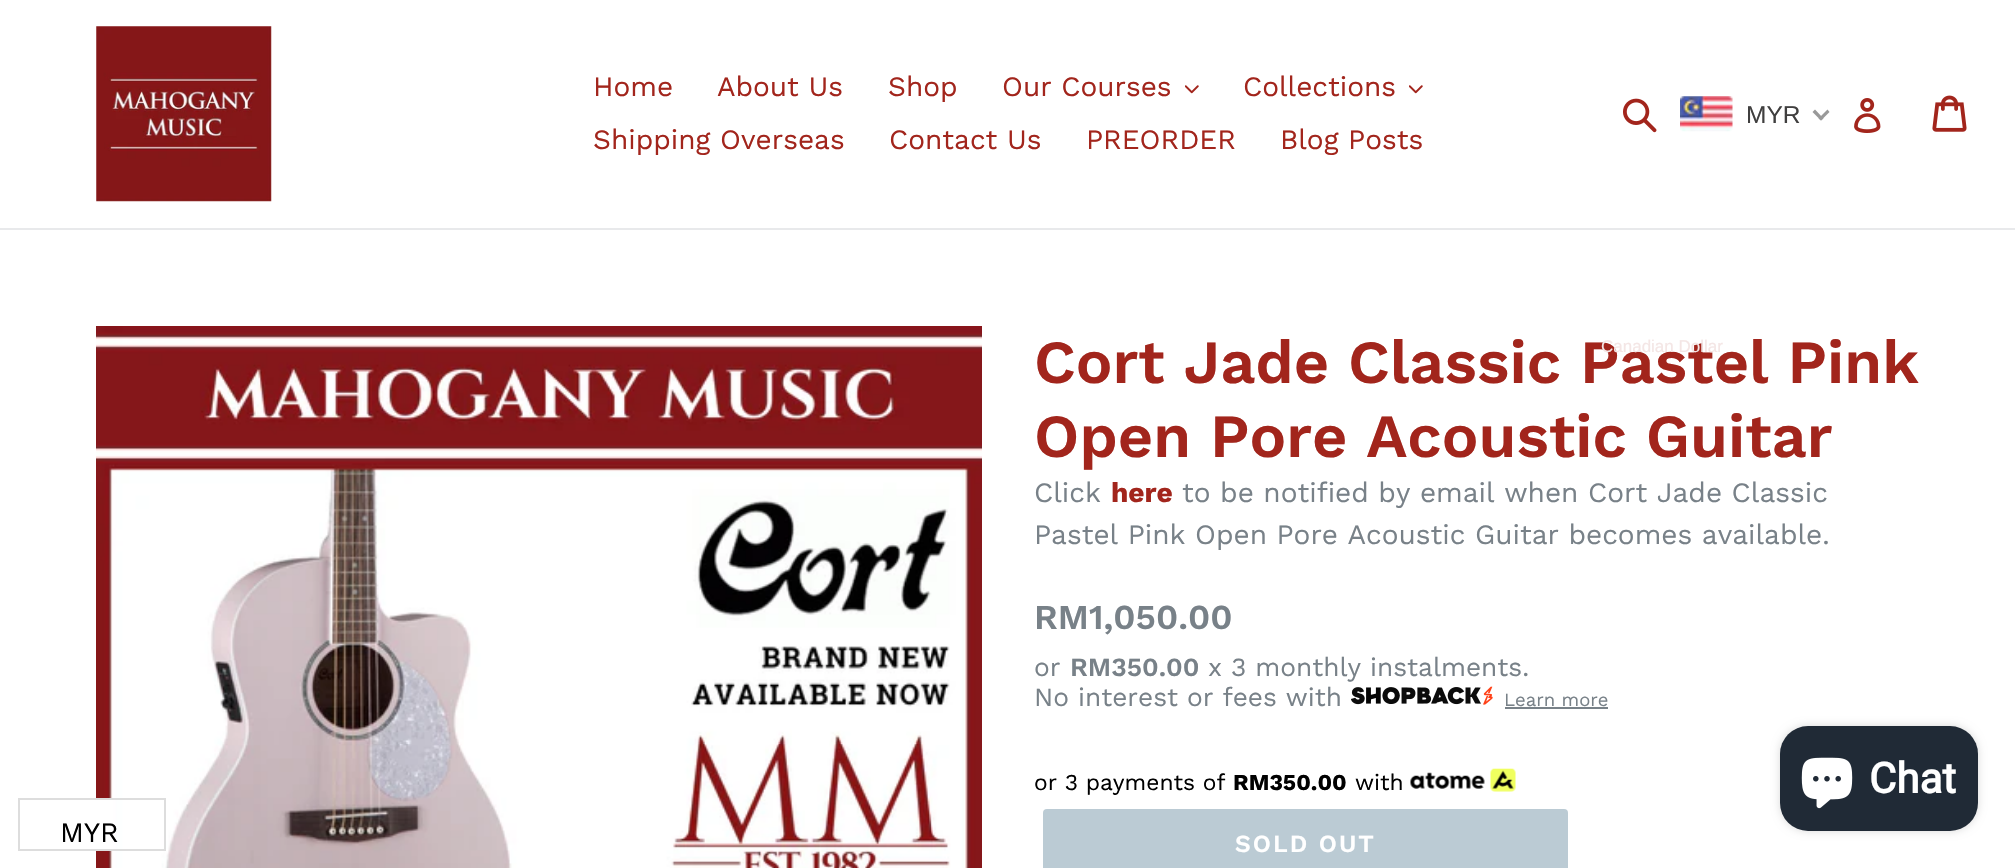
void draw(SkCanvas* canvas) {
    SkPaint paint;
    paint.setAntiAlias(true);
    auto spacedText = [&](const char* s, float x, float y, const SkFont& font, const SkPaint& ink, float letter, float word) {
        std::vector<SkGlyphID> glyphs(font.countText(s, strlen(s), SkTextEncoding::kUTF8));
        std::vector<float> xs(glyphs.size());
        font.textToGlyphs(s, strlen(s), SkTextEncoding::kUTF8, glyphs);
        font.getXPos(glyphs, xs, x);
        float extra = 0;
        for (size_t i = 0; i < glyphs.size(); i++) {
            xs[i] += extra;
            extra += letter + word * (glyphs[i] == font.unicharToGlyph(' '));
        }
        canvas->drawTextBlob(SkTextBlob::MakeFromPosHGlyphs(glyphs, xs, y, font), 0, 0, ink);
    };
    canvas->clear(0xFFFFFFFF);
    paint.setColor(0xFFE8E9EB);
    canvas->drawRect(SkRect::MakeXYWH(0, 228, 2015, 2), paint);
    canvas->drawImageRect(SkImages::DeferredFromEncodedData(SkData::MakeFromFileName("img1.png")), SkRect::MakeXYWH(96, 26, 176, 176), SkSamplingOptions());
    SkFont font1(fontMgr->matchFamilyStyle("Work Sans", SkFontStyle::Normal()), 28);
    font1.setSubpixel(true);
    paint.setColor(0xFFA2251C);
    canvas->drawString("Home", 593, 96, font1, paint);
    canvas->drawString("About Us", 717, 96, font1, paint);
    canvas->drawString("Shop", 888, 96, font1, paint);
    canvas->drawString("Our Courses", 1002, 96, font1, paint);
    canvas->drawImageRect(SkImages::DeferredFromEncodedData(SkData::MakeFromFileName("img2.png")), SkRect::MakeXYWH(1185, 85, 14, 9), SkSamplingOptions());
    canvas->drawString("Collections", 1243, 96, font1, paint);
    canvas->drawImageRect(SkImages::DeferredFromEncodedData(SkData::MakeFromFileName("img2.png")), SkRect::MakeXYWH(1409, 85, 14, 9), SkSamplingOptions());
    canvas->drawString("Shipping Overseas", 593, 149, font1, paint);
    canvas->drawString("Contact Us", 889, 149, font1, paint);
    canvas->drawString("PREORDER", 1086, 149, font1, paint);
    canvas->drawString("Blog Posts", 1280, 149, font1, paint);
    canvas->drawImageRect(SkImages::DeferredFromEncodedData(SkData::MakeFromFileName("img3.png")), SkRect::MakeXYWH(1623, 98, 34, 35), SkSamplingOptions());
    canvas->drawImageRect(SkImages::DeferredFromEncodedData(SkData::MakeFromFileName("img4.png")), SkRect::MakeXYWH(1854, 98, 27, 35), SkSamplingOptions());
    canvas->drawImageRect(SkImages::DeferredFromEncodedData(SkData::MakeFromFileName("img5.png")), SkRect::MakeXYWH(1932, 95, 35, 37), SkSamplingOptions());
    canvas->drawImageRect(SkImages::DeferredFromEncodedData(SkData::MakeFromFileName("img6.png")), SkRect::MakeXYWH(1680, 96, 53, 36), SkSamplingOptions());
    SkFont font2(fontMgr->matchFamilyStyle("Liberation Sans", SkFontStyle::Normal()), 24.5f);
    font2.setSubpixel(true);
    paint.setColor(0xFF403F3F);
    canvas->drawString("MYR", 1746, 123, font2, paint);
    paint.setColor(0xFF999999);
    canvas->drawPath(SkPathBuilder().moveTo(1827.5f, 109.5f).lineTo(1829.5f, 112).lineTo(1821, 120.5f).lineTo(1818.5f, 118.5f).close().detach(), paint);
    canvas->drawPath(SkPathBuilder().moveTo(1815, 109.5f).lineTo(1823.5f, 118.5f).lineTo(1821, 120.5f).lineTo(1812.5f, 112).close().detach(), paint);
    SkFont font3(fontMgr->matchFamilyStyle("Work Sans", SkFontStyle(600, SkFontStyle::kNormal_Width, SkFontStyle::kUpright_Slant)), 61.25f);
    font3.setSubpixel(true);
    paint.setColor(0xFFA2251C);
    canvas->drawString("Cort Jade Classic Pastel Pink", 1034, 383, font3, paint);
    SkFont font4(fontMgr->matchFamilyStyle("Liberation Sans", SkFontStyle::Normal()), 17);
    font4.setSubpixel(true);
    paint.setColor(0xFFF4E6E5);
    canvas->drawString("Canadian Dollar", 1601, 352, font4, paint);
    canvas->drawImageRect(SkImages::DeferredFromEncodedData(SkData::MakeFromFileName("img7.png")), SkRect::MakeXYWH(96, 326, 886, 542), SkSamplingOptions());
    paint.setColor(0xFFA2251C);
    canvas->drawString("Open Pore Acoustic Guitar", 1034, 457, font3, paint);
    paint.setColor(0xFF788188);
    canvas->drawString("Click", 1034, 502, font1, paint);
    SkFont font5(fontMgr->matchFamilyStyle("Work Sans", SkFontStyle::Bold()), 28);
    font5.setSubpixel(true);
    paint.setColor(0xFFA2251C);
    canvas->drawString("here", 1111, 502, font5, paint);
    paint.setColor(0xFF788188);
    canvas->drawString("to be notified by email when Cort Jade Classic", 1182, 502, font1, paint);
    canvas->drawString("Pastel Pink Open Pore Acoustic Guitar becomes available.", 1034, 544, font1, paint);
    SkFont font6(fontMgr->matchFamilyStyle("Work Sans", SkFontStyle(600, SkFontStyle::kNormal_Width, SkFontStyle::kUpright_Slant)), 35);
    font6.setSubpixel(true);
    canvas->drawString("RM1,050.00", 1034, 629, font6, paint);
    SkFont font7(fontMgr->matchFamilyStyle("Work Sans", SkFontStyle::Normal()), 26.25f);
    font7.setSubpixel(true);
    canvas->drawString("or", 1034, 676, font7, paint);
    SkFont font8(fontMgr->matchFamilyStyle("Work Sans", SkFontStyle(600, SkFontStyle::kNormal_Width, SkFontStyle::kUpright_Slant)), 26.25f);
    font8.setSubpixel(true);
    canvas->drawString("RM350.00", 1070, 676, font8, paint);
    canvas->drawString("x 3 monthly instalments.", 1208, 676, font7, paint);
    canvas->drawString("No interest or fees with", 1034, 706, font7, paint);
    canvas->drawImageRect(SkImages::DeferredFromEncodedData(SkData::MakeFromFileName("img8.png")), SkRect::MakeXYWH(1351, 686, 142, 19), SkSamplingOptions());
    SkFont font9(fontMgr->matchFamilyStyle("Work Sans", SkFontStyle::Normal()), 18.5f);
    font9.setSubpixel(true);
    canvas->drawString("Learn more", 1504, 706, font9, paint);
    canvas->drawRect(SkRect::MakeXYWH(1505, 707, 103, 2), paint);
    SkFont font10(fontMgr->matchFamilyStyle("Work Sans", SkFontStyle::Normal()), 22.75f);
    font10.setSubpixel(true);
    paint.setColor(0xFF000000);
    canvas->drawString("or 3 payments of", 1034, 790, font10, paint);
    SkFont font11(fontMgr->matchFamilyStyle("Work Sans", SkFontStyle::Bold()), 22.75f);
    font11.setSubpixel(true);
    canvas->drawString("RM350.00", 1233, 790, font11, paint);
    canvas->drawString("with", 1355, 790, font10, paint);
    canvas->drawImageRect(SkImages::DeferredFromEncodedData(SkData::MakeFromFileName("img9.png")), SkRect::MakeXYWH(1410, 768, 106, 24), SkSamplingOptions());
    paint.setColor(0xFFBBCBD4);
    canvas->drawRoundRect(SkRect::MakeXYWH(1043, 809, 525, 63), 4, 4, paint);
    SkFont font12(fontMgr->matchFamilyStyle("Work Sans", SkFontStyle(600, SkFontStyle::kNormal_Width, SkFontStyle::kUpright_Slant)), 24.5f);
    font12.setSubpixel(true);
    paint.setColor(0xFFFFFFFF);
    spacedText("SOLD OUT", 1235, 852, font12, paint, 2, 0);
    paint.setColor(0x26000000);
    paint.setMaskFilter(SkMaskFilter::MakeBlur(kNormal_SkBlurStyle, 4.5f));
    canvas->drawRoundRect(SkRect::MakeXYWH(1780, 726, 198, 105), 28, 28, paint);
    paint.setMaskFilter(nullptr);
    paint.setColor(0xFF202A36);
    canvas->drawRoundRect(SkRect::MakeXYWH(1780, 726, 198, 105), 28, 28, paint);
    canvas->drawImageRect(SkImages::DeferredFromEncodedData(SkData::MakeFromFileName("img10.png")), SkRect::MakeXYWH(1801, 757, 52, 52), SkSamplingOptions());
    SkFont font13(fontMgr->matchFamilyStyle("Roboto", SkFontStyle::Bold()), 42);
    font13.setSubpixel(true);
    paint.setColor(0xFFFFFFFF);
    canvas->drawString("Chat", 1869, 793, font13, paint);
    canvas->drawRect(SkRect::MakeXYWH(96, 800, 17, 49), paint);
    paint.setStyle(SkPaint::kStroke_Style);
    paint.setStrokeWidth(2);
    paint.setColor(0xFFDDDDDD);
    canvas->drawRect(SkRect::MakeXYWH(19, 799, 146, 51), paint);
    paint.setStyle(SkPaint::kFill_Style);
    paint.setColor(0xFF000000);
    canvas->drawString("MYR", 60, 842, font1, paint);
}
